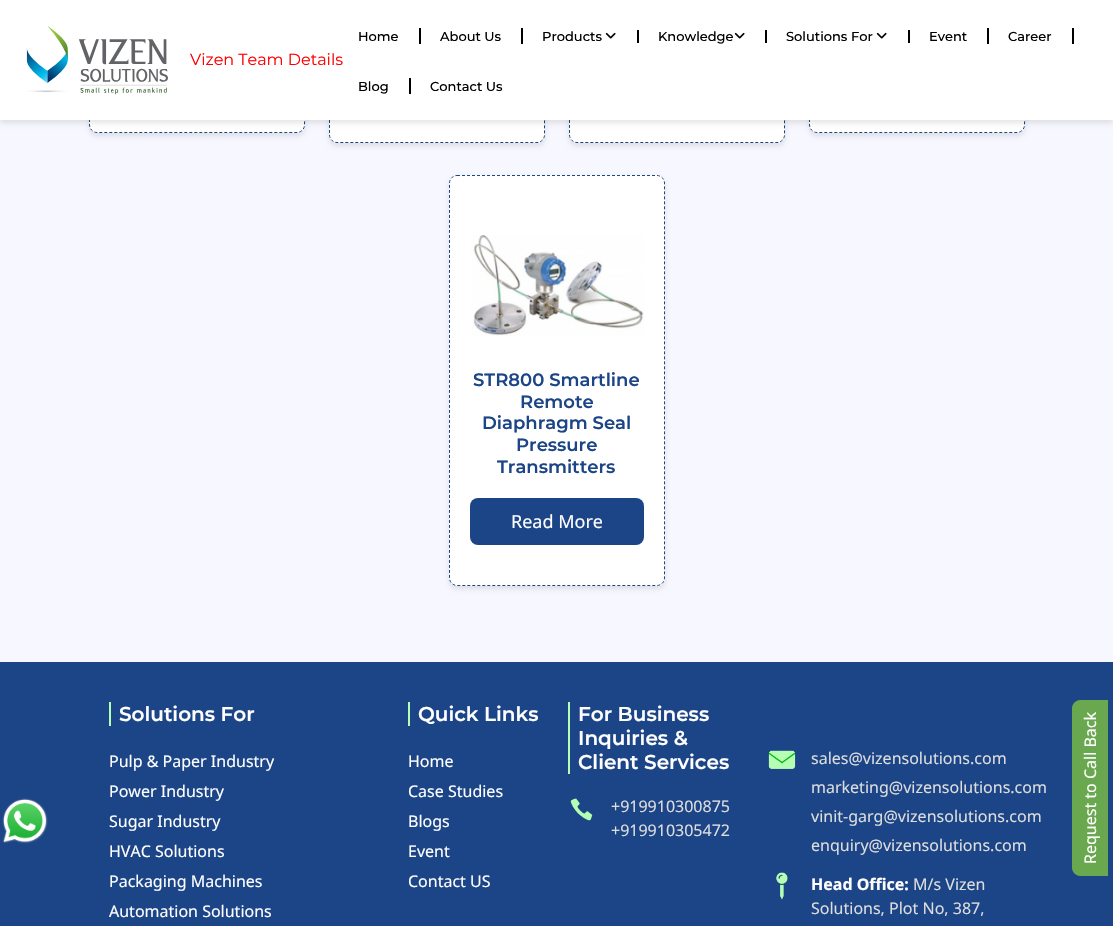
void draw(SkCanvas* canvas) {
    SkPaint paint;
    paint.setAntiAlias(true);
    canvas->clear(0xFFF7F7FF);
    paint.setColor(0x1A000000);
    paint.setMaskFilter(SkMaskFilter::MakeBlur(kNormal_SkBlurStyle, 2.5f));
    canvas->drawRoundRect(SkRect::MakeXYWH(89, -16, 216, 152), 8, 8, paint);
    paint.setMaskFilter(nullptr);
    paint.setColor(0xFFFFFFFF);
    canvas->drawRoundRect(SkRect::MakeXYWH(89, -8, 216, 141), 8, 8, paint);
    paint.setStyle(SkPaint::kStroke_Style);
    paint.setStrokeWidth(1);
    paint.setColor(0xFF1C4587);
    paint.setPathEffect(SkDashPathEffect::Make({{3, 2}}, 0));
    canvas->drawPath(SkPathBuilder().moveTo(97, -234.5f).lineTo(297, -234.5f).cubicTo(301, -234.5f, 304.5f, -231, 304.5f, -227).lineTo(304.5f, 125).cubicTo(304.5f, 129, 301, 132.5f, 297, 132.5f).lineTo(97, 132.5f).cubicTo(93, 132.5f, 89.5f, 129, 89.5f, 125).lineTo(89.5f, -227).cubicTo(89.5f, -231, 93, -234.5f, 97, -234.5f).close().detach(), paint);
    paint.setPathEffect(nullptr);
    paint.setStyle(SkPaint::kFill_Style);
    paint.setColor(0x1A000000);
    paint.setMaskFilter(SkMaskFilter::MakeBlur(kNormal_SkBlurStyle, 2.5f));
    canvas->drawRoundRect(SkRect::MakeXYWH(329, -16, 216, 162), 8, 8, paint);
    paint.setMaskFilter(nullptr);
    paint.setColor(0xFFFFFFFF);
    canvas->drawRoundRect(SkRect::MakeXYWH(329, -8, 216, 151), 8, 8, paint);
    paint.setStyle(SkPaint::kStroke_Style);
    paint.setColor(0xFF1C4587);
    paint.setPathEffect(SkDashPathEffect::Make({{3, 2}}, 0));
    canvas->drawPath(SkPathBuilder().moveTo(337, -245.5f).lineTo(537, -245.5f).cubicTo(541, -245.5f, 544.5f, -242, 544.5f, -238).lineTo(544.5f, 135).cubicTo(544.5f, 139, 541, 142.5f, 537, 142.5f).lineTo(337, 142.5f).cubicTo(333, 142.5f, 329.5f, 139, 329.5f, 135).lineTo(329.5f, -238).cubicTo(329.5f, -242, 333, -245.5f, 337, -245.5f).close().detach(), paint);
    paint.setPathEffect(nullptr);
    paint.setStyle(SkPaint::kFill_Style);
    paint.setColor(0x1A000000);
    paint.setMaskFilter(SkMaskFilter::MakeBlur(kNormal_SkBlurStyle, 2.5f));
    canvas->drawRoundRect(SkRect::MakeXYWH(569, -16, 216, 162), 8, 8, paint);
    paint.setMaskFilter(nullptr);
    paint.setColor(0xFFFFFFFF);
    canvas->drawRoundRect(SkRect::MakeXYWH(569, -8, 216, 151), 8, 8, paint);
    paint.setStyle(SkPaint::kStroke_Style);
    paint.setColor(0xFF1C4587);
    paint.setPathEffect(SkDashPathEffect::Make({{3, 2}}, 0));
    canvas->drawPath(SkPathBuilder().moveTo(577, -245.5f).lineTo(777, -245.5f).cubicTo(781, -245.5f, 784.5f, -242, 784.5f, -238).lineTo(784.5f, 135).cubicTo(784.5f, 139, 781, 142.5f, 777, 142.5f).lineTo(577, 142.5f).cubicTo(573, 142.5f, 569.5f, 139, 569.5f, 135).lineTo(569.5f, -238).cubicTo(569.5f, -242, 573, -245.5f, 577, -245.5f).close().detach(), paint);
    paint.setPathEffect(nullptr);
    paint.setStyle(SkPaint::kFill_Style);
    paint.setColor(0x1A000000);
    paint.setMaskFilter(SkMaskFilter::MakeBlur(kNormal_SkBlurStyle, 2.5f));
    canvas->drawRoundRect(SkRect::MakeXYWH(809, -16, 216, 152), 8, 8, paint);
    paint.setMaskFilter(nullptr);
    paint.setColor(0xFFFFFFFF);
    canvas->drawRoundRect(SkRect::MakeXYWH(809, -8, 216, 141), 8, 8, paint);
    paint.setStyle(SkPaint::kStroke_Style);
    paint.setColor(0xFF1C4587);
    paint.setPathEffect(SkDashPathEffect::Make({{3, 2}}, 0));
    canvas->drawPath(SkPathBuilder().moveTo(817, -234.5f).lineTo(1017, -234.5f).cubicTo(1021, -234.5f, 1024.5f, -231, 1024.5f, -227).lineTo(1024.5f, 125).cubicTo(1024.5f, 129, 1021, 132.5f, 1017, 132.5f).lineTo(817, 132.5f).cubicTo(813, 132.5f, 809.5f, 129, 809.5f, 125).lineTo(809.5f, -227).cubicTo(809.5f, -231, 813, -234.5f, 817, -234.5f).close().detach(), paint);
    paint.setPathEffect(nullptr);
    paint.setStyle(SkPaint::kFill_Style);
    paint.setColor(0x1A000000);
    paint.setMaskFilter(SkMaskFilter::MakeBlur(kNormal_SkBlurStyle, 2.5f));
    canvas->drawRect(SkRect::MakeXYWH(0, 3, 1113, 120), paint);
    paint.setMaskFilter(nullptr);
    paint.setColor(0xFFFFFFFF);
    canvas->drawRect(SkRect::MakeXYWH(0, 0, 1113, 120), paint);
    canvas->drawImageRect(SkImages::DeferredFromEncodedData(SkData::MakeFromFileName("img1.png")), SkRect::MakeXYWH(26, 26, 142, 69), SkSamplingOptions());
    SkFont font1(fontMgr->matchFamilyStyle("Montserrat", SkFontStyle::Normal()), 16);
    font1.setSubpixel(true);
    paint.setColor(0xFFFF0000);
    canvas->drawString("Vizen Team Details", 190, 65, font1, paint);
    SkFont font2(fontMgr->matchFamilyStyle("Montserrat", SkFontStyle(500, SkFontStyle::kNormal_Width, SkFontStyle::kUpright_Slant)), 13);
    font2.setSubpixel(true);
    paint.setColor(0xFF000000);
    canvas->drawString("Home", 358, 41, font2, paint);
    canvas->drawRect(SkRect::MakeXYWH(419, 28, 2, 16), paint);
    canvas->drawString("About Us", 440, 41, font2, paint);
    canvas->drawRect(SkRect::MakeXYWH(521, 28, 2, 16), paint);
    canvas->drawRect(SkRect::MakeXYWH(637, 30, 2, 13), paint);
    canvas->drawString("Products", 542, 41, font2, paint);
    canvas->drawImageRect(SkImages::DeferredFromEncodedData(SkData::MakeFromFileName("img2.png")), SkRect::MakeXYWH(605, 32, 11, 7), SkSamplingOptions());
    canvas->drawRect(SkRect::MakeXYWH(765, 30, 2, 13), paint);
    canvas->drawString("Knowledge", 658, 41, font2, paint);
    canvas->drawImageRect(SkImages::DeferredFromEncodedData(SkData::MakeFromFileName("img2.png")), SkRect::MakeXYWH(734, 32, 11, 7), SkSamplingOptions());
    canvas->drawRect(SkRect::MakeXYWH(908, 30, 2, 13), paint);
    canvas->drawString("Solutions For", 786, 41, font2, paint);
    canvas->drawImageRect(SkImages::DeferredFromEncodedData(SkData::MakeFromFileName("img2.png")), SkRect::MakeXYWH(876, 32, 11, 7), SkSamplingOptions());
    canvas->drawString("Event", 929, 41, font2, paint);
    canvas->drawRect(SkRect::MakeXYWH(987, 28, 2, 16), paint);
    canvas->drawString("Career", 1008, 41, font2, paint);
    canvas->drawRect(SkRect::MakeXYWH(1072, 28, 2, 16), paint);
    canvas->drawString("Blog", 358, 91, font2, paint);
    canvas->drawRect(SkRect::MakeXYWH(409, 78, 2, 16), paint);
    canvas->drawString("Contact Us", 430, 91, font2, paint);
    paint.setColor(0x1A000000);
    paint.setMaskFilter(SkMaskFilter::MakeBlur(kNormal_SkBlurStyle, 2.5f));
    canvas->drawRoundRect(SkRect::MakeXYWH(449, 178, 216, 411), 8, 8, paint);
    paint.setMaskFilter(nullptr);
    paint.setColor(0xFFFFFFFF);
    canvas->drawRoundRect(SkRect::MakeXYWH(449, 175, 216, 411), 8, 8, paint);
    paint.setStyle(SkPaint::kStroke_Style);
    paint.setColor(0xFF1C4587);
    paint.setPathEffect(SkDashPathEffect::Make({{3, 2}}, 0));
    canvas->drawPath(SkPathBuilder().moveTo(457, 175.5f).lineTo(657, 175.5f).cubicTo(661, 175.5f, 664.5f, 179, 664.5f, 183).lineTo(664.5f, 578).cubicTo(664.5f, 582, 661, 585.5f, 657, 585.5f).lineTo(457, 585.5f).cubicTo(453, 585.5f, 449.5f, 582, 449.5f, 578).lineTo(449.5f, 183).cubicTo(449.5f, 179, 453, 175.5f, 457, 175.5f).close().detach(), paint);
    paint.setPathEffect(nullptr);
    canvas->drawImageRect(SkImages::DeferredFromEncodedData(SkData::MakeFromFileName("img3.png")), SkRect::MakeXYWH(471, 235, 173, 101), SkSamplingOptions());
    SkFont font3(fontMgr->matchFamilyStyle("Montserrat", SkFontStyle(600, SkFontStyle::kNormal_Width, SkFontStyle::kUpright_Slant)), 18);
    font3.setSubpixel(true);
    paint.setStyle(SkPaint::kFill_Style);
    canvas->drawString("STR800 Smartline", 473, 386, font3, paint);
    canvas->drawString("Remote", 520, 408, font3, paint);
    canvas->drawString("Diaphragm Seal", 482, 429, font3, paint);
    canvas->drawString("Pressure", 516, 451, font3, paint);
    canvas->drawString("Transmitters", 497, 473, font3, paint);
    canvas->drawRoundRect(SkRect::MakeXYWH(470, 498, 174, 47), 8, 8, paint);
    SkFont font4(fontMgr->matchFamilyStyle("Noto Sans", SkFontStyle::Normal()), 18);
    font4.setSubpixel(true);
    paint.setColor(0xFFFFFFFF);
    canvas->drawString("Read More", 511, 528, font4, paint);
    paint.setColor(0xFF1C4587);
    canvas->drawRect(SkRect::MakeXYWH(0, 662, 1113, 264), paint);
    canvas->drawImageRect(SkImages::DeferredFromEncodedData(SkData::MakeFromFileName("img4.png")), SkRect::MakeXYWH(2, 798, 46, 46), SkSamplingOptions());
    paint.setColor(0xFFB4FFB4);
    canvas->drawRect(SkRect::MakeXYWH(109, 702, 2, 24), paint);
    SkFont font5(fontMgr->matchFamilyStyle("Montserrat", SkFontStyle(600, SkFontStyle::kNormal_Width, SkFontStyle::kUpright_Slant)), 20);
    font5.setSubpixel(true);
    paint.setColor(0xFFFFFFFF);
    canvas->drawString("Solutions For", 119, 721, font5, paint);
    SkFont font6(fontMgr->matchFamilyStyle("Noto Sans", SkFontStyle::Normal()), 16);
    font6.setSubpixel(true);
    canvas->drawString("Pulp & Paper Industry", 109, 767, font6, paint);
    canvas->drawString("Power Industry", 109, 797, font6, paint);
    canvas->drawString("Sugar Industry", 109, 827, font6, paint);
    canvas->drawString("HVAC Solutions", 109, 857, font6, paint);
    canvas->drawString("Packaging Machines", 109, 887, font6, paint);
    canvas->drawString("Automation Solutions", 109, 917, font6, paint);
    paint.setColor(0xFFB4FFB4);
    canvas->drawRect(SkRect::MakeXYWH(408, 702, 2, 24), paint);
    paint.setColor(0xFFFFFFFF);
    canvas->drawString("Quick Links", 418, 721, font5, paint);
    canvas->drawString("Home", 408, 767, font6, paint);
    canvas->drawString("Case Studies", 408, 797, font6, paint);
    canvas->drawString("Blogs", 408, 827, font6, paint);
    canvas->drawString("Event", 408, 857, font6, paint);
    canvas->drawString("Contact US", 408, 887, font6, paint);
    paint.setColor(0xFFB4FFB4);
    canvas->drawRect(SkRect::MakeXYWH(568, 702, 2, 72), paint);
    paint.setColor(0xFFFFFFFF);
    canvas->drawString("For Business", 578, 721, font5, paint);
    canvas->drawString("Inquiries &", 578, 745, font5, paint);
    canvas->drawString("Client Services", 578, 769, font5, paint);
    canvas->drawImageRect(SkImages::DeferredFromEncodedData(SkData::MakeFromFileName("img5.png")), SkRect::MakeXYWH(570, 798, 23, 23), SkSamplingOptions());
    paint.setColor(0xFFDDDDDD);
    canvas->drawString("+919910300875", 611, 812, font6, paint);
    canvas->drawString("+919910305472", 611, 836, font6, paint);
    canvas->drawImageRect(SkImages::DeferredFromEncodedData(SkData::MakeFromFileName("img6.png")), SkRect::MakeXYWH(768, 750, 28, 19), SkSamplingOptions());
    canvas->drawString("sales@vizensolutions.com", 811, 764, font6, paint);
    canvas->drawString("marketing@vizensolutions.com", 811, 793, font6, paint);
    canvas->drawString("vinit-garg@vizensolutions.com", 811, 822, font6, paint);
    canvas->drawString("enquiry@vizensolutions.com", 811, 851, font6, paint);
    canvas->drawImageRect(SkImages::DeferredFromEncodedData(SkData::MakeFromFileName("img7.png")), SkRect::MakeXYWH(776, 872, 12, 28), SkSamplingOptions());
    SkFont font7(fontMgr->matchFamilyStyle("Noto Sans", SkFontStyle::Bold()), 16);
    font7.setSubpixel(true);
    paint.setColor(0xFFFFFFFF);
    canvas->drawString("Head Office:", 811, 890, font7, paint);
    paint.setColor(0xFFDDDDDD);
    canvas->drawString("M/s Vizen", 913, 890, font6, paint);
    canvas->drawString("Solutions, Plot No, 387,", 811, 914, font6, paint);
    paint.setColor(0xFF6AA84F);
    canvas->drawPath(SkPathBuilder().moveTo(1072, 868).lineTo(1072, 708).cubicTo(1072, 704, 1076, 700, 1080, 700).lineTo(1108, 700).lineTo(1108, 876).lineTo(1080, 876).cubicTo(1076, 876, 1072, 872, 1072, 868).close().detach(), paint);
    paint.setColor(0xFFFFFFFF);
    canvas->save();
    canvas->rotate(-90, 1096, 864);
    canvas->drawString("Request to Call Back", 1096, 864, font6, paint);
    canvas->restore();
}
